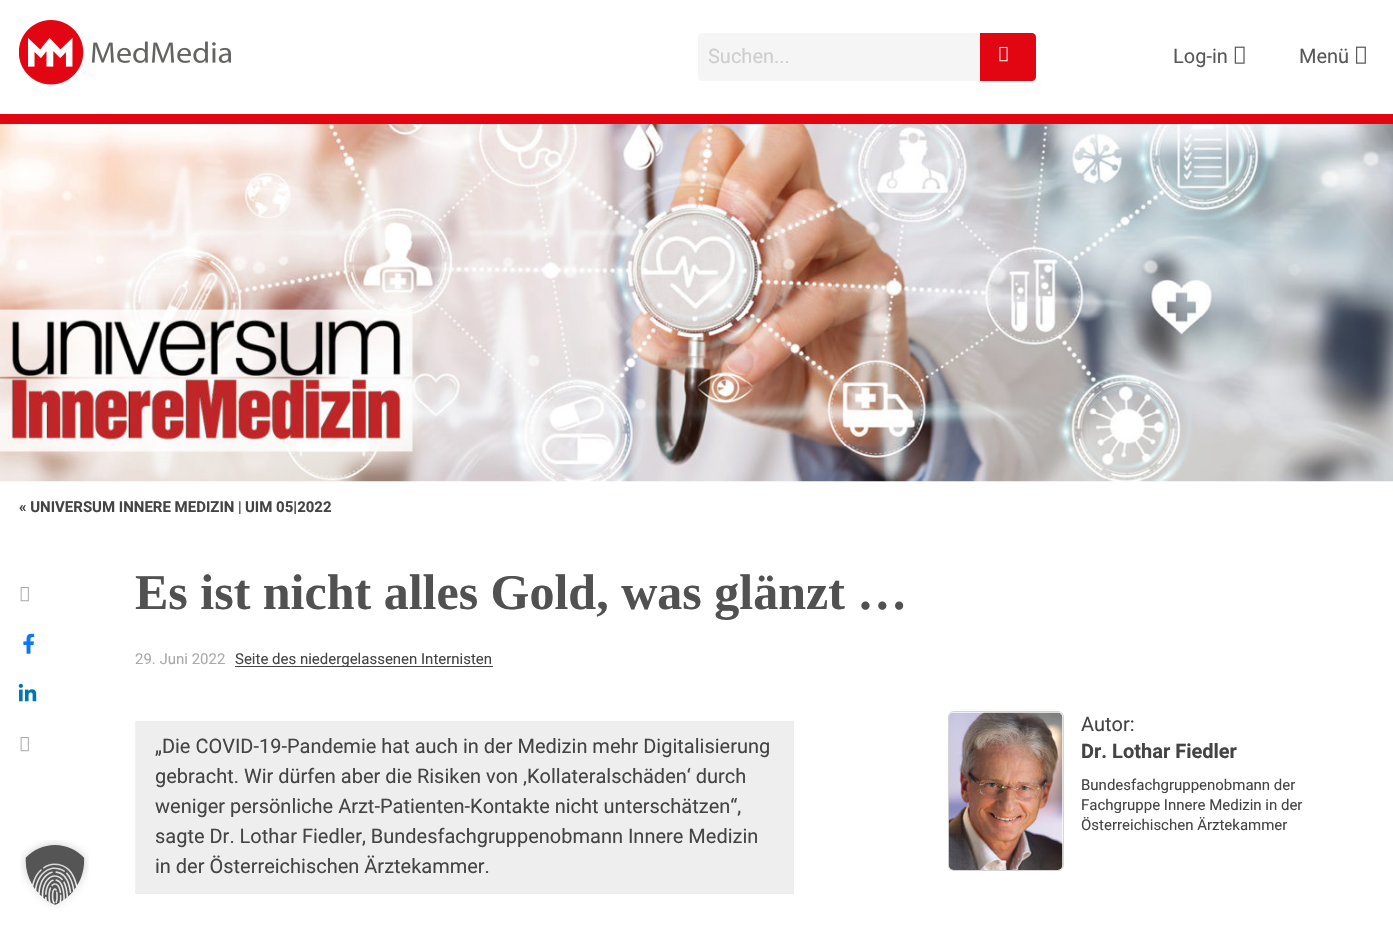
void draw(SkCanvas* canvas) {
    SkPaint paint;
    paint.setAntiAlias(true);
    canvas->clear(0xFFFFFFFF);
    paint.setColor(0xFFE20613);
    canvas->drawRect(SkRect::MakeXYWH(0, 114, 1393, 10), paint);
    canvas->drawImageRect(SkImages::DeferredFromEncodedData(SkData::MakeFromFileName("img1.png")), SkRect::MakeXYWH(19, 20, 212, 65), SkSamplingOptions());
    paint.setColor(0xFFF5F5F5);
    canvas->drawPath(SkPathBuilder().moveTo(702, 33).lineTo(980, 33).lineTo(980, 81).lineTo(702, 81).cubicTo(700, 81, 698, 79, 698, 77).lineTo(698, 37).cubicTo(698, 35, 700, 33, 702, 33).close().detach(), paint);
    SkFont font1(fontMgr->matchFamilyStyle("Roboto", SkFontStyle::Normal()), 20);
    font1.setSubpixel(true);
    paint.setColor(0xFFCECECE);
    canvas->drawString("Suchen...", 708, 63, font1, paint);
    paint.setColor(0xFFE20613);
    canvas->drawPath(SkPathBuilder().moveTo(980, 33).lineTo(1032, 33).cubicTo(1034, 33, 1036, 35, 1036, 37).lineTo(1036, 77).cubicTo(1036, 79, 1034, 81, 1032, 81).lineTo(980, 81).close().detach(), paint);
    canvas->drawImageRect(SkImages::DeferredFromEncodedData(SkData::MakeFromFileName("img2.png")), SkRect::MakeXYWH(999, 46, 9, 16), SkSamplingOptions());
    paint.setColor(0xFF595959);
    canvas->drawString("Log-in", 1173, 63, font1, paint);
    canvas->drawImageRect(SkImages::DeferredFromEncodedData(SkData::MakeFromFileName("img3.png")), SkRect::MakeXYWH(1234, 46, 11, 18), SkSamplingOptions());
    canvas->drawString("Menü", 1299, 63, font1, paint);
    canvas->drawImageRect(SkImages::DeferredFromEncodedData(SkData::MakeFromFileName("img4.png")), SkRect::MakeXYWH(1356, 46, 10, 18), SkSamplingOptions());
    canvas->drawImageRect(SkImages::DeferredFromEncodedData(SkData::MakeFromFileName("img5.png")), SkRect::MakeXYWH(0, 124, 1393, 358), SkSamplingOptions());
    SkFont font2(fontMgr->matchFamilyStyle("Roboto", SkFontStyle::Bold()), 15);
    font2.setSubpixel(true);
    paint.setColor(0xFF444444);
    canvas->drawString("« UNIVERSUM INNERE MEDIZIN", 19, 512, font2, paint);
    SkFont font3(fontMgr->matchFamilyStyle("Roboto", SkFontStyle::Normal()), 15);
    font3.setSubpixel(true);
    canvas->drawString("|", 238, 512, font3, paint);
    canvas->drawString("UIM 05|2022", 245, 512, font2, paint);
    canvas->drawImageRect(SkImages::DeferredFromEncodedData(SkData::MakeFromFileName("img6.png")), SkRect::MakeXYWH(20, 587, 9, 15), SkSamplingOptions());
    canvas->drawImageRect(SkImages::DeferredFromEncodedData(SkData::MakeFromFileName("img7.png")), SkRect::MakeXYWH(23, 633, 12, 21), SkSamplingOptions());
    canvas->drawImageRect(SkImages::DeferredFromEncodedData(SkData::MakeFromFileName("img8.png")), SkRect::MakeXYWH(18, 683, 19, 19), SkSamplingOptions());
    canvas->drawImageRect(SkImages::DeferredFromEncodedData(SkData::MakeFromFileName("img6.png")), SkRect::MakeXYWH(20, 737, 9, 15), SkSamplingOptions());
    SkFont font4(fontMgr->matchFamilyStyle("Liberation Serif", SkFontStyle::Bold()), 50);
    font4.setSubpixel(true);
    paint.setColor(0xFF515151);
    canvas->drawString("Es ist nicht alles Gold, was glänzt …", 135, 609, font4, paint);
    paint.setColor(0xFFAAAAAA);
    canvas->drawString("29. Juni 2022", 135, 664, font3, paint);
    paint.setColor(0xFF444444);
    canvas->drawRect(SkRect::MakeXYWH(235, 666, 258, 1), paint);
    canvas->drawString("Seite des niedergelassenen Internisten", 235, 664, font3, paint);
    paint.setColor(0xFFEEEEEE);
    canvas->drawRect(SkRect::MakeXYWH(136, 722, 657, 171), paint);
    paint.setColor(0xFFECECEC);
    canvas->drawRect(SkRect::MakeXYWH(135, 721, 659, 1), paint);
    canvas->drawRect(SkRect::MakeXYWH(793, 721, 1, 173), paint);
    canvas->drawRect(SkRect::MakeXYWH(135, 893, 659, 1), paint);
    paint.setColor(0xFFF2F2F2);
    canvas->drawRect(SkRect::MakeXYWH(135, 721, 1, 173), paint);
    paint.setColor(0xFF444444);
    canvas->drawString("„Die COVID-19-Pandemie hat auch in der Medizin mehr Digitalisierung", 155, 753, font1, paint);
    canvas->drawString("gebracht. Wir dürfen aber die Risiken von ‚Kollateralschäden‘ durch", 155, 783, font1, paint);
    canvas->drawString("weniger persönliche Arzt-Patienten-Kontakte nicht unterschätzen“,", 155, 813, font1, paint);
    canvas->drawString("sagte Dr. Lothar Fiedler, Bundesfachgruppenobmann Innere Medizin", 155, 843, font1, paint);
    canvas->drawString("in der Österreichischen Ärztekammer.", 155, 873, font1, paint);
    paint.setStyle(SkPaint::kStroke_Style);
    paint.setStrokeWidth(1);
    paint.setColor(0xFFD6D4D5);
    canvas->drawRoundRect(SkRect::MakeXYWH(948.5f, 711.5f, 115, 159), 5.5f, 5.5f, paint);
    canvas->drawImageRect(SkImages::DeferredFromEncodedData(SkData::MakeFromFileName("img9.png")), SkRect::MakeXYWH(948, 712, 115, 158), SkSamplingOptions());
    paint.setStyle(SkPaint::kFill_Style);
    paint.setColor(0xFF444444);
    canvas->drawString("Autor:", 1081, 731, font1, paint);
    SkFont font5(fontMgr->matchFamilyStyle("Roboto", SkFontStyle::Bold()), 20);
    font5.setSubpixel(true);
    canvas->drawString("Dr. Lothar Fiedler", 1081, 758, font5, paint);
    canvas->drawString("Bundesfachgruppenobmann der", 1081, 790, font3, paint);
    canvas->drawString("Fachgruppe Innere Medizin in der", 1081, 810, font3, paint);
    canvas->drawString("Österreichischen Ärztekammer", 1081, 830, font3, paint);
    canvas->drawImageRect(SkImages::DeferredFromEncodedData(SkData::MakeFromFileName("img10.png")), SkRect::MakeXYWH(20, 840, 69, 68), SkSamplingOptions());
}
